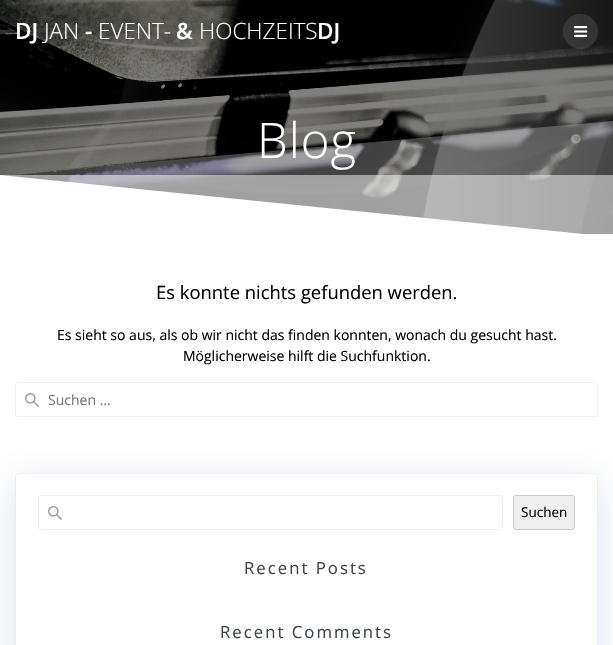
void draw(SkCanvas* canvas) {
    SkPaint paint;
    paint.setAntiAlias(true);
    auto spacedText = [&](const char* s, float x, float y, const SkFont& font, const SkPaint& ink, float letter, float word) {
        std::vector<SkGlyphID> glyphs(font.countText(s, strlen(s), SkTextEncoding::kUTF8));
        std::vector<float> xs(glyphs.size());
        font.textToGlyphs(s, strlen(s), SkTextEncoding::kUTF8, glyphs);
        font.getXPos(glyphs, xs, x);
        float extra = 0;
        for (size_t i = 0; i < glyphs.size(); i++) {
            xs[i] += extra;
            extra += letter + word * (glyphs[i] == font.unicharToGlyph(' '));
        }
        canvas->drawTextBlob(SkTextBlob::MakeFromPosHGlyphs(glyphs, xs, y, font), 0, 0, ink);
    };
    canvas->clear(0xFFFFFFFF);
    canvas->drawImageRect(SkImages::DeferredFromEncodedData(SkData::MakeFromFileName("img2.png")), SkRect::MakeXYWH(0, 0, 613, 234), SkSamplingOptions());
    canvas->drawImageRect(SkImages::DeferredFromEncodedData(SkData::MakeFromFileName("img3.png")), SkRect::MakeXYWH(0, 0, 613, 234), SkSamplingOptions());
    SkFont font1(fontMgr->matchFamilyStyle("Open Sans", SkFontStyle(600, SkFontStyle::kNormal_Width, SkFontStyle::kUpright_Slant)), 22.5f);
    font1.setSubpixel(true);
    paint.setColor(0xFFFFFFFF);
    canvas->drawString("DJ", 15, 39, font1, paint);
    SkFont font2(fontMgr->matchFamilyStyle("Open Sans", SkFontStyle(300, SkFontStyle::kNormal_Width, SkFontStyle::kUpright_Slant)), 22.5f);
    font2.setSubpixel(true);
    canvas->drawString("JAN", 44, 39, font2, paint);
    canvas->drawString("-", 85, 39, font1, paint);
    canvas->drawString("EVENT-", 98, 39, font2, paint);
    canvas->drawString("&", 176, 39, font1, paint);
    canvas->drawString("HOCHZEITS", 199, 39, font2, paint);
    canvas->drawString("DJ", 317, 39, font1, paint);
    paint.setColor(0x1AFFFFFF);
    canvas->drawCircle(580.5f, 31.5f, 17.5f, paint);
    canvas->drawImageRect(SkImages::DeferredFromEncodedData(SkData::MakeFromFileName("img1.png")), SkRect::MakeXYWH(574, 26, 14, 11), SkSamplingOptions());
    canvas->save();
    canvas->clipRect(SkRect::MakeXYWH(0, 119, 613, 117));
    paint.setColor(0xFFFFFFFF);
    canvas->drawPath(SkPathBuilder().moveTo(613, 237).lineTo(-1, 237).lineTo(-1, 175).close().detach(), paint);
    canvas->restore();
    paint.setColor(0x80FFFFFF);
    canvas->drawRect(SkRect::MakeXYWH(0, 175, 613, 59), paint);
    canvas->save();
    canvas->clipRect(SkRect::MakeXYWH(0, 119, 613, 117));
    paint.setColor(0x40FFFFFF);
    canvas->drawPath(SkPathBuilder().moveTo(-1, 237).lineTo(613, 237).lineTo(613, 121).lineTo(-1, 175).close().detach(), paint);
    canvas->restore();
    SkFont font3(fontMgr->matchFamilyStyle("Open Sans", SkFontStyle(300, SkFontStyle::kNormal_Width, SkFontStyle::kUpright_Slant)), 49);
    font3.setSubpixel(true);
    paint.setColor(0xFFFFFFFF);
    spacedText("Blog", 257, 158, font3, paint, 1, 0);
    SkFont font4(fontMgr->matchFamilyStyle("Open Sans", SkFontStyle::Normal()), 18.4f);
    font4.setSubpixel(true);
    paint.setColor(0xFF000000);
    canvas->drawString("Es konnte nichts gefunden werden.", 156, 299, font4, paint);
    SkFont font5(fontMgr->matchFamilyStyle("Open Sans", SkFontStyle::Normal()), 14);
    font5.setSubpixel(true);
    canvas->drawString("Es sieht so aus, als ob wir nicht das finden konnten, wonach du gesucht hast.", 57, 340, font5, paint);
    canvas->drawString("Möglicherweise hilft die Suchfunktion.", 183, 361, font5, paint);
    canvas->drawImageRect(SkImages::DeferredFromEncodedData(SkData::MakeFromFileName("img4.png")), SkRect::MakeXYWH(25, 393, 14, 14), SkSamplingOptions());
    paint.setStyle(SkPaint::kStroke_Style);
    paint.setStrokeWidth(1);
    paint.setColor(0xFFF1F1F1);
    canvas->drawRoundRect(SkRect::MakeXYWH(15.5f, 382.5f, 582, 34), 2.5f, 2.5f, paint);
    paint.setStyle(SkPaint::kFill_Style);
    paint.setColor(0xFF757575);
    canvas->drawString("Suchen …", 48, 405, font5, paint);
    canvas->save();
    canvas->clipPath(SkPathBuilder(SkPathFillType::kEvenOdd).moveTo(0, 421).lineTo(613, 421).lineTo(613, 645).lineTo(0, 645).close().moveTo(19, 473).lineTo(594, 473).cubicTo(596, 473, 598, 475, 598, 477).lineTo(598, 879).cubicTo(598, 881, 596, 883, 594, 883).lineTo(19, 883).cubicTo(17, 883, 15, 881, 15, 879).lineTo(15, 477).cubicTo(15, 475, 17, 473, 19, 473).close().detach(), true);
    paint.setColor(0x26234598);
    paint.setMaskFilter(SkMaskFilter::MakeBlur(kNormal_SkBlurStyle, 19.5f));
    canvas->drawRoundRect(SkRect::MakeXYWH(15, 481, 583, 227), 4, 4, paint);
    paint.setMaskFilter(nullptr);
    canvas->restore();
    paint.setStyle(SkPaint::kStroke_Style);
    paint.setColor(0xFFECECEC);
    canvas->drawRoundRect(SkRect::MakeXYWH(15.5f, 473.5f, 582, 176), 3.5f, 3.5f, paint);
    canvas->drawImageRect(SkImages::DeferredFromEncodedData(SkData::MakeFromFileName("img4.png")), SkRect::MakeXYWH(48, 506, 14, 14), SkSamplingOptions());
    paint.setColor(0xFFF1F1F1);
    canvas->drawRoundRect(SkRect::MakeXYWH(38.5f, 495.5f, 464, 34), 2.5f, 2.5f, paint);
    paint.setStyle(SkPaint::kFill_Style);
    paint.setColor(0xFFEFEFEF);
    canvas->drawRoundRect(SkRect::MakeXYWH(513.5f, 495.5f, 61, 34), 2.5f, 2.5f, paint);
    paint.setStyle(SkPaint::kStroke_Style);
    paint.setColor(0xFFCCCCCC);
    canvas->drawRoundRect(SkRect::MakeXYWH(513.5f, 495.5f, 61, 34), 2.5f, 2.5f, paint);
    SkFont font6(fontMgr->matchFamilyStyle("Open Sans", SkFontStyle::Normal()), 13.5f);
    font6.setSubpixel(true);
    paint.setStyle(SkPaint::kFill_Style);
    paint.setColor(0xFF000000);
    canvas->drawString("Suchen", 521, 517, font6, paint);
    SkFont font7(fontMgr->matchFamilyStyle("Open Sans", SkFontStyle::Normal()), 16.75f);
    font7.setSubpixel(true);
    paint.setColor(0xFF3C424F);
    spacedText("Recent Posts", 244, 574, font7, paint, 2, 0);
    spacedText("Recent Comments", 220, 638, font7, paint, 2, 0);
}
